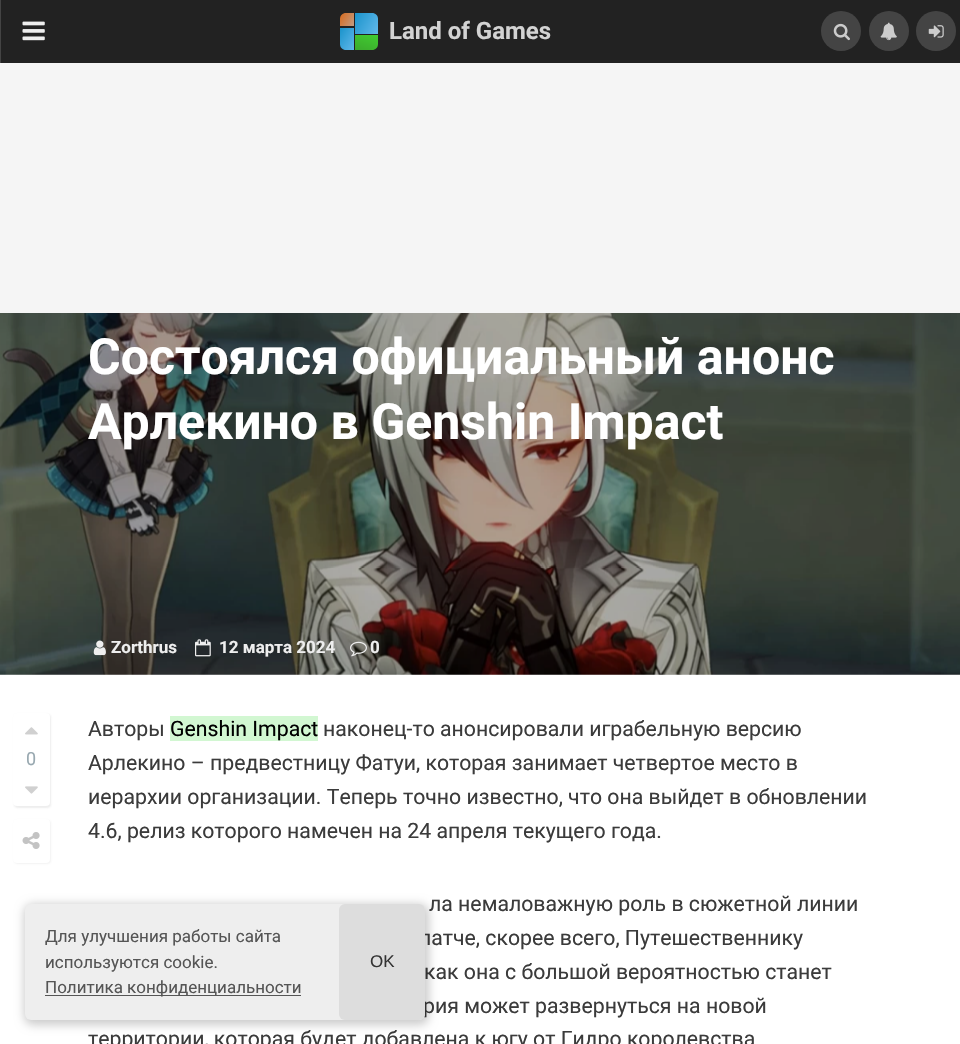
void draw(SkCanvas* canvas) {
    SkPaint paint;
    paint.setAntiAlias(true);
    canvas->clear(0xFFF5F5F5);
    paint.setColor(0xFF222222);
    canvas->drawRect(SkRect::MakeXYWH(1, 0, 959, 63), paint);
    paint.setColor(0xFF444444);
    canvas->drawRect(SkRect::MakeXYWH(0, 0, 1, 63), paint);
    canvas->drawImageRect(SkImages::DeferredFromEncodedData(SkData::MakeFromFileName("img1.png")), SkRect::MakeXYWH(22, 21, 23, 20), SkSamplingOptions());
    {
        const SkColor colors[] = {0xFFD76A1D, 0xFFC29C83};
        const float stops[] = {0, 1};
        const SkPoint ends[] = {{339, 15}, {355, 24}};
        paint.setShader(SkGradientShader::MakeLinear(ends, colors, stops, 2, SkTileMode::kClamp));
        paint.setAlpha(255);
    }
    canvas->drawPath(SkPathBuilder().moveTo(346, 13).lineTo(354, 13).lineTo(354, 26).lineTo(340, 26).lineTo(340, 19).cubicTo(340, 15.5f, 342.5f, 13, 346, 13).close().detach(), paint);
    {
        const SkColor colors[] = {0xFF1A93CB, 0xFF61B8EA};
        const float stops[] = {0, 1};
        const SkPoint ends[] = {{353, 16}, {379, 31}};
        paint.setShader(SkGradientShader::MakeLinear(ends, colors, stops, 2, SkTileMode::kClamp));
        paint.setAlpha(255);
    }
    canvas->drawPath(SkPathBuilder().moveTo(355, 13).lineTo(372, 13).cubicTo(375.5f, 13, 378, 15.5f, 378, 19).lineTo(378, 34).lineTo(355, 34).close().detach(), paint);
    {
        const SkColor colors[] = {0xFF1A93CB, 0xFF61B8EA};
        const float stops[] = {0, 1};
        const SkPoint ends[] = {{337, 33}, {357, 45}};
        paint.setShader(SkGradientShader::MakeLinear(ends, colors, stops, 2, SkTileMode::kClamp));
        paint.setAlpha(255);
    }
    canvas->drawPath(SkPathBuilder().moveTo(340, 28).lineTo(354, 28).lineTo(354, 50).lineTo(346, 50).cubicTo(342.5f, 50, 340, 47.5f, 340, 44).close().detach(), paint);
    {
        const SkColor colors[] = {0xFF41CD31, 0xFF3BA92C};
        const float stops[] = {0, 1};
        const SkPoint ends[] = {{370, 32}, {363, 53}};
        paint.setShader(SkGradientShader::MakeLinear(ends, colors, stops, 2, SkTileMode::kClamp));
        paint.setAlpha(255);
    }
    canvas->drawPath(SkPathBuilder().moveTo(355, 35).lineTo(378, 35).lineTo(378, 44).cubicTo(378, 47.5f, 375.5f, 50, 372, 50).lineTo(355, 50).close().detach(), paint);
    SkFont font1(fontMgr->matchFamilyStyle("Roboto", SkFontStyle::Bold()), 24);
    font1.setSubpixel(true);
    paint.setShader(nullptr);
    paint.setColor(0xFFD3D3D3);
    canvas->drawString("Land of Games", 389, 39, font1, paint);
    paint.setColor(0xFF444444);
    canvas->drawCircle(841, 31, 20, paint);
    canvas->drawImageRect(SkImages::DeferredFromEncodedData(SkData::MakeFromFileName("img2.png")), SkRect::MakeXYWH(833, 23, 17, 18), SkSamplingOptions());
    canvas->drawCircle(889, 31, 20, paint);
    canvas->drawImageRect(SkImages::DeferredFromEncodedData(SkData::MakeFromFileName("img3.png")), SkRect::MakeXYWH(880, 22, 17, 19), SkSamplingOptions());
    canvas->drawCircle(936, 31, 20, paint);
    canvas->drawImageRect(SkImages::DeferredFromEncodedData(SkData::MakeFromFileName("img4.png")), SkRect::MakeXYWH(928, 25, 16, 13), SkSamplingOptions());
    canvas->drawImageRect(SkImages::DeferredFromEncodedData(SkData::MakeFromFileName("img5.png")), SkRect::MakeXYWH(0, 313, 960, 362), SkSamplingOptions());
    SkFont font2(fontMgr->matchFamilyStyle("Roboto", SkFontStyle::Bold()), 50);
    font2.setSubpixel(true);
    paint.setColor(0xFFFFFFFF);
    canvas->drawString("Состоялся официальный анонс", 88, 374, font2, paint);
    canvas->drawString("Арлекино в Genshin Impact", 88, 439, font2, paint);
    canvas->drawImageRect(SkImages::DeferredFromEncodedData(SkData::MakeFromFileName("img6.png")), SkRect::MakeXYWH(93, 640, 13, 16), SkSamplingOptions());
    SkFont font3(fontMgr->matchFamilyStyle("Roboto", SkFontStyle::Bold()), 17);
    font3.setSubpixel(true);
    paint.setColor(0xFFEEEEEE);
    canvas->drawString("Zorthrus", 111, 653, font3, paint);
    canvas->drawImageRect(SkImages::DeferredFromEncodedData(SkData::MakeFromFileName("img7.png")), SkRect::MakeXYWH(195, 639, 16, 18), SkSamplingOptions());
    canvas->drawString("12 марта 2024", 219, 653, font3, paint);
    canvas->drawImageRect(SkImages::DeferredFromEncodedData(SkData::MakeFromFileName("img8.png")), SkRect::MakeXYWH(350, 641, 17, 16), SkSamplingOptions());
    canvas->drawString("0", 370, 653, font3, paint);
    paint.setColor(0xFFFFFFFF);
    canvas->drawRect(SkRect::MakeXYWH(0, 675, 960, 369), paint);
    paint.setColor(0x1A4D4D4D);
    paint.setMaskFilter(SkMaskFilter::MakeBlur(kNormal_SkBlurStyle, 1));
    canvas->drawRoundRect(SkRect::MakeXYWH(14, 714, 37, 94), 4, 4, paint);
    paint.setMaskFilter(nullptr);
    paint.setColor(0xFFFFFFFF);
    canvas->drawRoundRect(SkRect::MakeXYWH(13, 713, 37, 93), 4, 4, paint);
    canvas->drawImageRect(SkImages::DeferredFromEncodedData(SkData::MakeFromFileName("img9.png")), SkRect::MakeXYWH(25, 727, 13, 8), SkSamplingOptions());
    SkFont font4(fontMgr->matchFamilyStyle("Roboto", SkFontStyle::Normal()), 18);
    font4.setSubpixel(true);
    paint.setColor(0xFF98A8B0);
    canvas->drawString("0", 26, 765, font4, paint);
    canvas->drawImageRect(SkImages::DeferredFromEncodedData(SkData::MakeFromFileName("img10.png")), SkRect::MakeXYWH(25, 786, 13, 8), SkSamplingOptions());
    paint.setColor(0x1A808080);
    paint.setMaskFilter(SkMaskFilter::MakeBlur(kNormal_SkBlurStyle, 1));
    canvas->drawRoundRect(SkRect::MakeXYWH(14, 820, 37, 44), 4, 4, paint);
    paint.setMaskFilter(nullptr);
    paint.setColor(0xFFFFFFFF);
    canvas->drawRoundRect(SkRect::MakeXYWH(13, 819, 37, 44), 4, 4, paint);
    canvas->drawImageRect(SkImages::DeferredFromEncodedData(SkData::MakeFromFileName("img11.png")), SkRect::MakeXYWH(22, 832, 18, 17), SkSamplingOptions());
    SkFont font5(fontMgr->matchFamilyStyle("Roboto", SkFontStyle::Normal()), 21.25f);
    font5.setSubpixel(true);
    paint.setColor(0xFF3B3B3B);
    canvas->drawString("Авторы", 88, 736, font5, paint);
    paint.setColor(0xFFD2F7D2);
    canvas->drawRect(SkRect::MakeXYWH(170, 716, 148, 25), paint);
    paint.setColor(0xFF000000);
    canvas->drawString("Genshin Impact", 170, 736, font5, paint);
    paint.setColor(0xFF3B3B3B);
    canvas->drawString("наконец-то анонсировали играбельную версию", 323, 736, font5, paint);
    canvas->drawString("Арлекино – предвестницу Фатуи, которая занимает четвертое место в", 88, 770, font5, paint);
    canvas->drawString("иерархии организации. Теперь точно известно, что она выйдет в обновлении", 88, 804, font5, paint);
    canvas->drawString("4.6, релиз которого намечен на 24 апреля текущего года.", 88, 838, font5, paint);
    canvas->drawString("ла немаловажную роль в сюжетной линии", 429, 911, font5, paint);
    canvas->drawString("патче, скорее всего, Путешественнику", 419, 945, font5, paint);
    canvas->drawString("как она с большой вероятностью станет", 424, 979, font5, paint);
    canvas->drawString("рия может развернуться на новой", 423, 1013, font5, paint);
    canvas->drawString("территории, которая будет добавлена к югу от Гидро королевства", 88, 1046, font5, paint);
    paint.setColor(0x33000000);
    paint.setMaskFilter(SkMaskFilter::MakeBlur(kNormal_SkBlurStyle, 5));
    canvas->drawRoundRect(SkRect::MakeXYWH(24, 904, 405, 121), 9, 9, paint);
    paint.setMaskFilter(nullptr);
    paint.setColor(0xFFEEEEEE);
    canvas->drawRoundRect(SkRect::MakeXYWH(25, 904, 400, 116), 6, 6, paint);
    SkFont font6(fontMgr->matchFamilyStyle("Roboto", SkFontStyle::Normal()), 17);
    font6.setSubpixel(true);
    paint.setColor(0xFF555555);
    canvas->drawString("Для улучшения работы сайта", 45, 942, font6, paint);
    canvas->drawString("используются cookie.", 45, 968, font6, paint);
    canvas->drawRect(SkRect::MakeXYWH(45, 995, 256, 1), paint);
    canvas->drawString("Политика конфиденциальности", 45, 993, font6, paint);
    paint.setColor(0xFFDDDDDD);
    canvas->drawRoundRect(SkRect::MakeXYWH(339, 904, 86, 116), 6, 6, paint);
    SkFont font7(fontMgr->matchFamilyStyle("Liberation Sans", SkFontStyle::Normal()), 17);
    font7.setSubpixel(true);
    paint.setColor(0xFF333333);
    canvas->drawString("OK", 370, 967, font7, paint);
}
